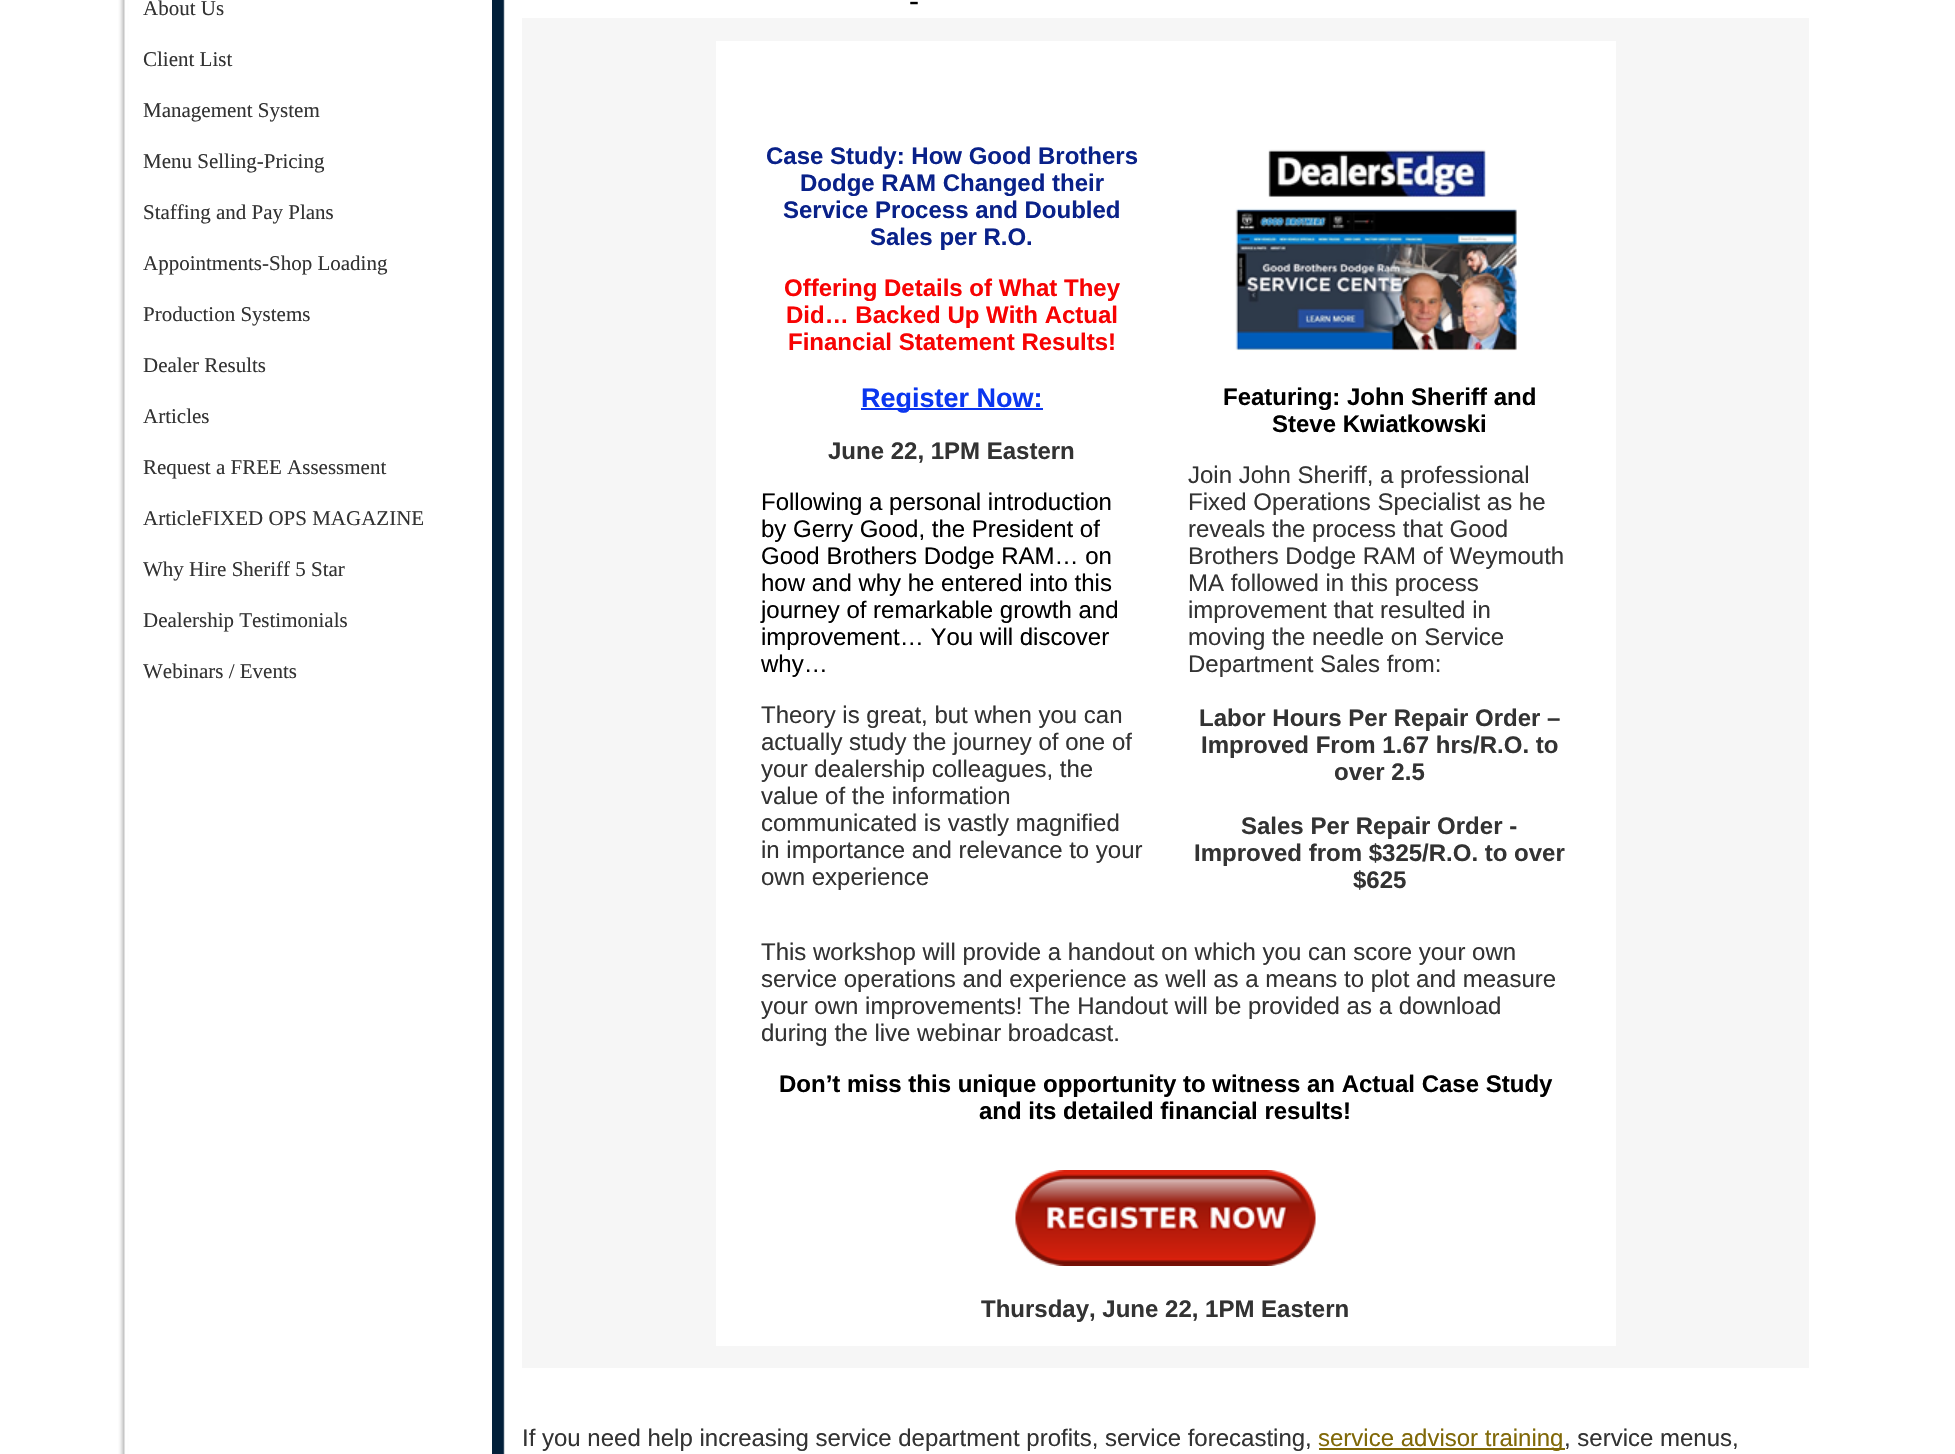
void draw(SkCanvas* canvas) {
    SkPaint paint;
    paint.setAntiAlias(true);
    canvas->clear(0xFFFFFFFF);
    canvas->drawImageRect(SkImages::DeferredFromEncodedData(SkData::MakeFromFileName("img1.png")), SkRect::MakeXYWH(117, 0, 375, 1454), SkSamplingOptions());
    SkFont font1(fontMgr->matchFamilyStyle("Liberation Serif", SkFontStyle::Normal()), 21);
    font1.setSubpixel(true);
    paint.setColor(0xFF333333);
    canvas->drawString("About Us", 143, 15, font1, paint);
    canvas->drawString("Client List", 143, 66, font1, paint);
    canvas->drawString("Management System", 143, 117, font1, paint);
    canvas->drawString("Menu Selling-Pricing", 143, 168, font1, paint);
    canvas->drawString("Staffing and Pay Plans", 143, 219, font1, paint);
    canvas->drawString("Appointments-Shop Loading", 143, 270, font1, paint);
    canvas->drawString("Production Systems", 143, 321, font1, paint);
    canvas->drawString("Dealer Results", 143, 372, font1, paint);
    canvas->drawString("Articles", 143, 423, font1, paint);
    canvas->drawString("Request a FREE Assessment", 143, 474, font1, paint);
    canvas->drawString("ArticleFIXED OPS MAGAZINE", 143, 525, font1, paint);
    canvas->drawString("Why Hire Sheriff 5 Star", 143, 576, font1, paint);
    canvas->drawString("Dealership Testimonials", 143, 627, font1, paint);
    canvas->drawString("Webinars / Events", 143, 678, font1, paint);
    canvas->drawImageRect(SkImages::DeferredFromEncodedData(SkData::MakeFromFileName("img2.png")), SkRect::MakeXYWH(492, 0, 13, 1454), SkSamplingOptions());
    SkFont font2(fontMgr->matchFamilyStyle("Liberation Sans", SkFontStyle::Normal()), 30);
    font2.setSubpixel(true);
    paint.setColor(0xFF000000);
    canvas->drawString("-", 909, 11, font2, paint);
    paint.setColor(0xFFF6F6F6);
    canvas->drawRect(SkRect::MakeXYWH(522, 18, 1287, 1350), paint);
    paint.setColor(0xFFFFFFFF);
    canvas->drawRect(SkRect::MakeXYWH(716, 41, 900, 1305), paint);
    SkFont font3(fontMgr->matchFamilyStyle("Liberation Sans", SkFontStyle::Bold()), 24);
    font3.setSubpixel(true);
    paint.setColor(0xFF092189);
    canvas->drawString("Case Study: How Good Brothers", 766, 164, font3, paint);
    canvas->drawString("Dodge RAM Changed their", 800, 191, font3, paint);
    canvas->drawString("Service Process and Doubled", 783, 218, font3, paint);
    canvas->drawString("Sales per R.O.", 870, 245, font3, paint);
    paint.setColor(0xFFF70303);
    canvas->drawString("Offering Details of What They", 784, 296, font3, paint);
    canvas->drawString("Did… Backed Up With Actual", 786, 323, font3, paint);
    canvas->drawString("Financial Statement Results!", 788, 350, font3, paint);
    paint.setColor(0xFF0B36EF);
    canvas->drawRect(SkRect::MakeXYWH(861, 408, 182, 2), paint);
    SkFont font4(fontMgr->matchFamilyStyle("Liberation Sans", SkFontStyle::Bold()), 27);
    font4.setSubpixel(true);
    canvas->drawString("Register Now:", 861, 407, font4, paint);
    paint.setColor(0xFF333333);
    canvas->drawString("June 22, 1PM Eastern", 828, 459, font3, paint);
    SkFont font5(fontMgr->matchFamilyStyle("Liberation Sans", SkFontStyle::Normal()), 24);
    font5.setSubpixel(true);
    paint.setColor(0xFF000000);
    canvas->drawString("Following a personal introduction", 761, 510, font5, paint);
    canvas->drawString("by Gerry Good, the President of", 761, 537, font5, paint);
    canvas->drawString("Good Brothers Dodge RAM… on", 761, 564, font5, paint);
    canvas->drawString("how and why he entered into this", 761, 591, font5, paint);
    canvas->drawString("journey of remarkable growth and", 761, 618, font5, paint);
    canvas->drawString("improvement… You will discover", 761, 645, font5, paint);
    canvas->drawString("why…", 761, 672, font5, paint);
    paint.setColor(0xFF333333);
    canvas->drawString("Theory is great, but when you can", 761, 723, font5, paint);
    canvas->drawString("actually study the journey of one of", 761, 750, font5, paint);
    canvas->drawString("your dealership colleagues, the", 761, 777, font5, paint);
    canvas->drawString("value of the information", 761, 804, font5, paint);
    canvas->drawString("communicated is vastly magnified", 761, 831, font5, paint);
    canvas->drawString("in importance and relevance to your", 761, 858, font5, paint);
    canvas->drawString("own experience", 761, 885, font5, paint);
    canvas->drawImageRect(SkImages::DeferredFromEncodedData(SkData::MakeFromFileName("img3.png")), SkRect::MakeXYWH(1235, 149, 282, 202), SkSamplingOptions());
    paint.setColor(0xFF000000);
    canvas->drawString("Featuring: John Sheriff and", 1223, 405, font3, paint);
    canvas->drawString("Steve Kwiatkowski", 1272, 432, font3, paint);
    paint.setColor(0xFF333333);
    canvas->drawString("Join John Sheriff, a professional", 1188, 483, font5, paint);
    canvas->drawString("Fixed Operations Specialist as he", 1188, 510, font5, paint);
    canvas->drawString("reveals the process that Good", 1188, 537, font5, paint);
    canvas->drawString("Brothers Dodge RAM of Weymouth", 1188, 564, font5, paint);
    canvas->drawString("MA followed in this process", 1188, 591, font5, paint);
    canvas->drawString("improvement that resulted in", 1188, 618, font5, paint);
    canvas->drawString("moving the needle on Service", 1188, 645, font5, paint);
    canvas->drawString("Department Sales from:", 1188, 672, font5, paint);
    canvas->drawString("Labor Hours Per Repair Order –", 1199, 726, font3, paint);
    canvas->drawString("Improved From 1.67 hrs/R.O. to", 1201, 753, font3, paint);
    canvas->drawString("over 2.5", 1334, 780, font3, paint);
    canvas->drawString("Sales Per Repair Order -", 1241, 834, font3, paint);
    canvas->drawString("Improved from $325/R.O. to over", 1194, 861, font3, paint);
    canvas->drawString("$625", 1353, 888, font3, paint);
    canvas->drawString("This workshop will provide a handout on which you can score your own", 761, 960, font5, paint);
    canvas->drawString("service operations and experience as well as a means to plot and measure", 761, 987, font5, paint);
    canvas->drawString("your own improvements! The Handout will be provided as a download", 761, 1014, font5, paint);
    canvas->drawString("during the live webinar broadcast.", 761, 1041, font5, paint);
    paint.setColor(0xFF000000);
    canvas->drawString("Don’t miss this unique opportunity to witness an Actual Case Study", 779, 1092, font3, paint);
    canvas->drawString("and its detailed financial results!", 979, 1119, font3, paint);
    canvas->drawImageRect(SkImages::DeferredFromEncodedData(SkData::MakeFromFileName("img4.png")), SkRect::MakeXYWH(1015, 1170, 301, 96), SkSamplingOptions());
    paint.setColor(0xFF333333);
    canvas->drawString("Thursday, June 22, 1PM Eastern", 981, 1317, font3, paint);
    canvas->drawString("If you need help increasing service department profits, service forecasting,", 522, 1446, font5, paint);
    paint.setColor(0xFF806807);
    canvas->drawRect(SkRect::MakeXYWH(1319, 1448, 246, 2), paint);
    canvas->drawString("service advisor training", 1318, 1446, font5, paint);
    paint.setColor(0xFF333333);
    canvas->drawString(", service menus,", 1564, 1446, font5, paint);
}
